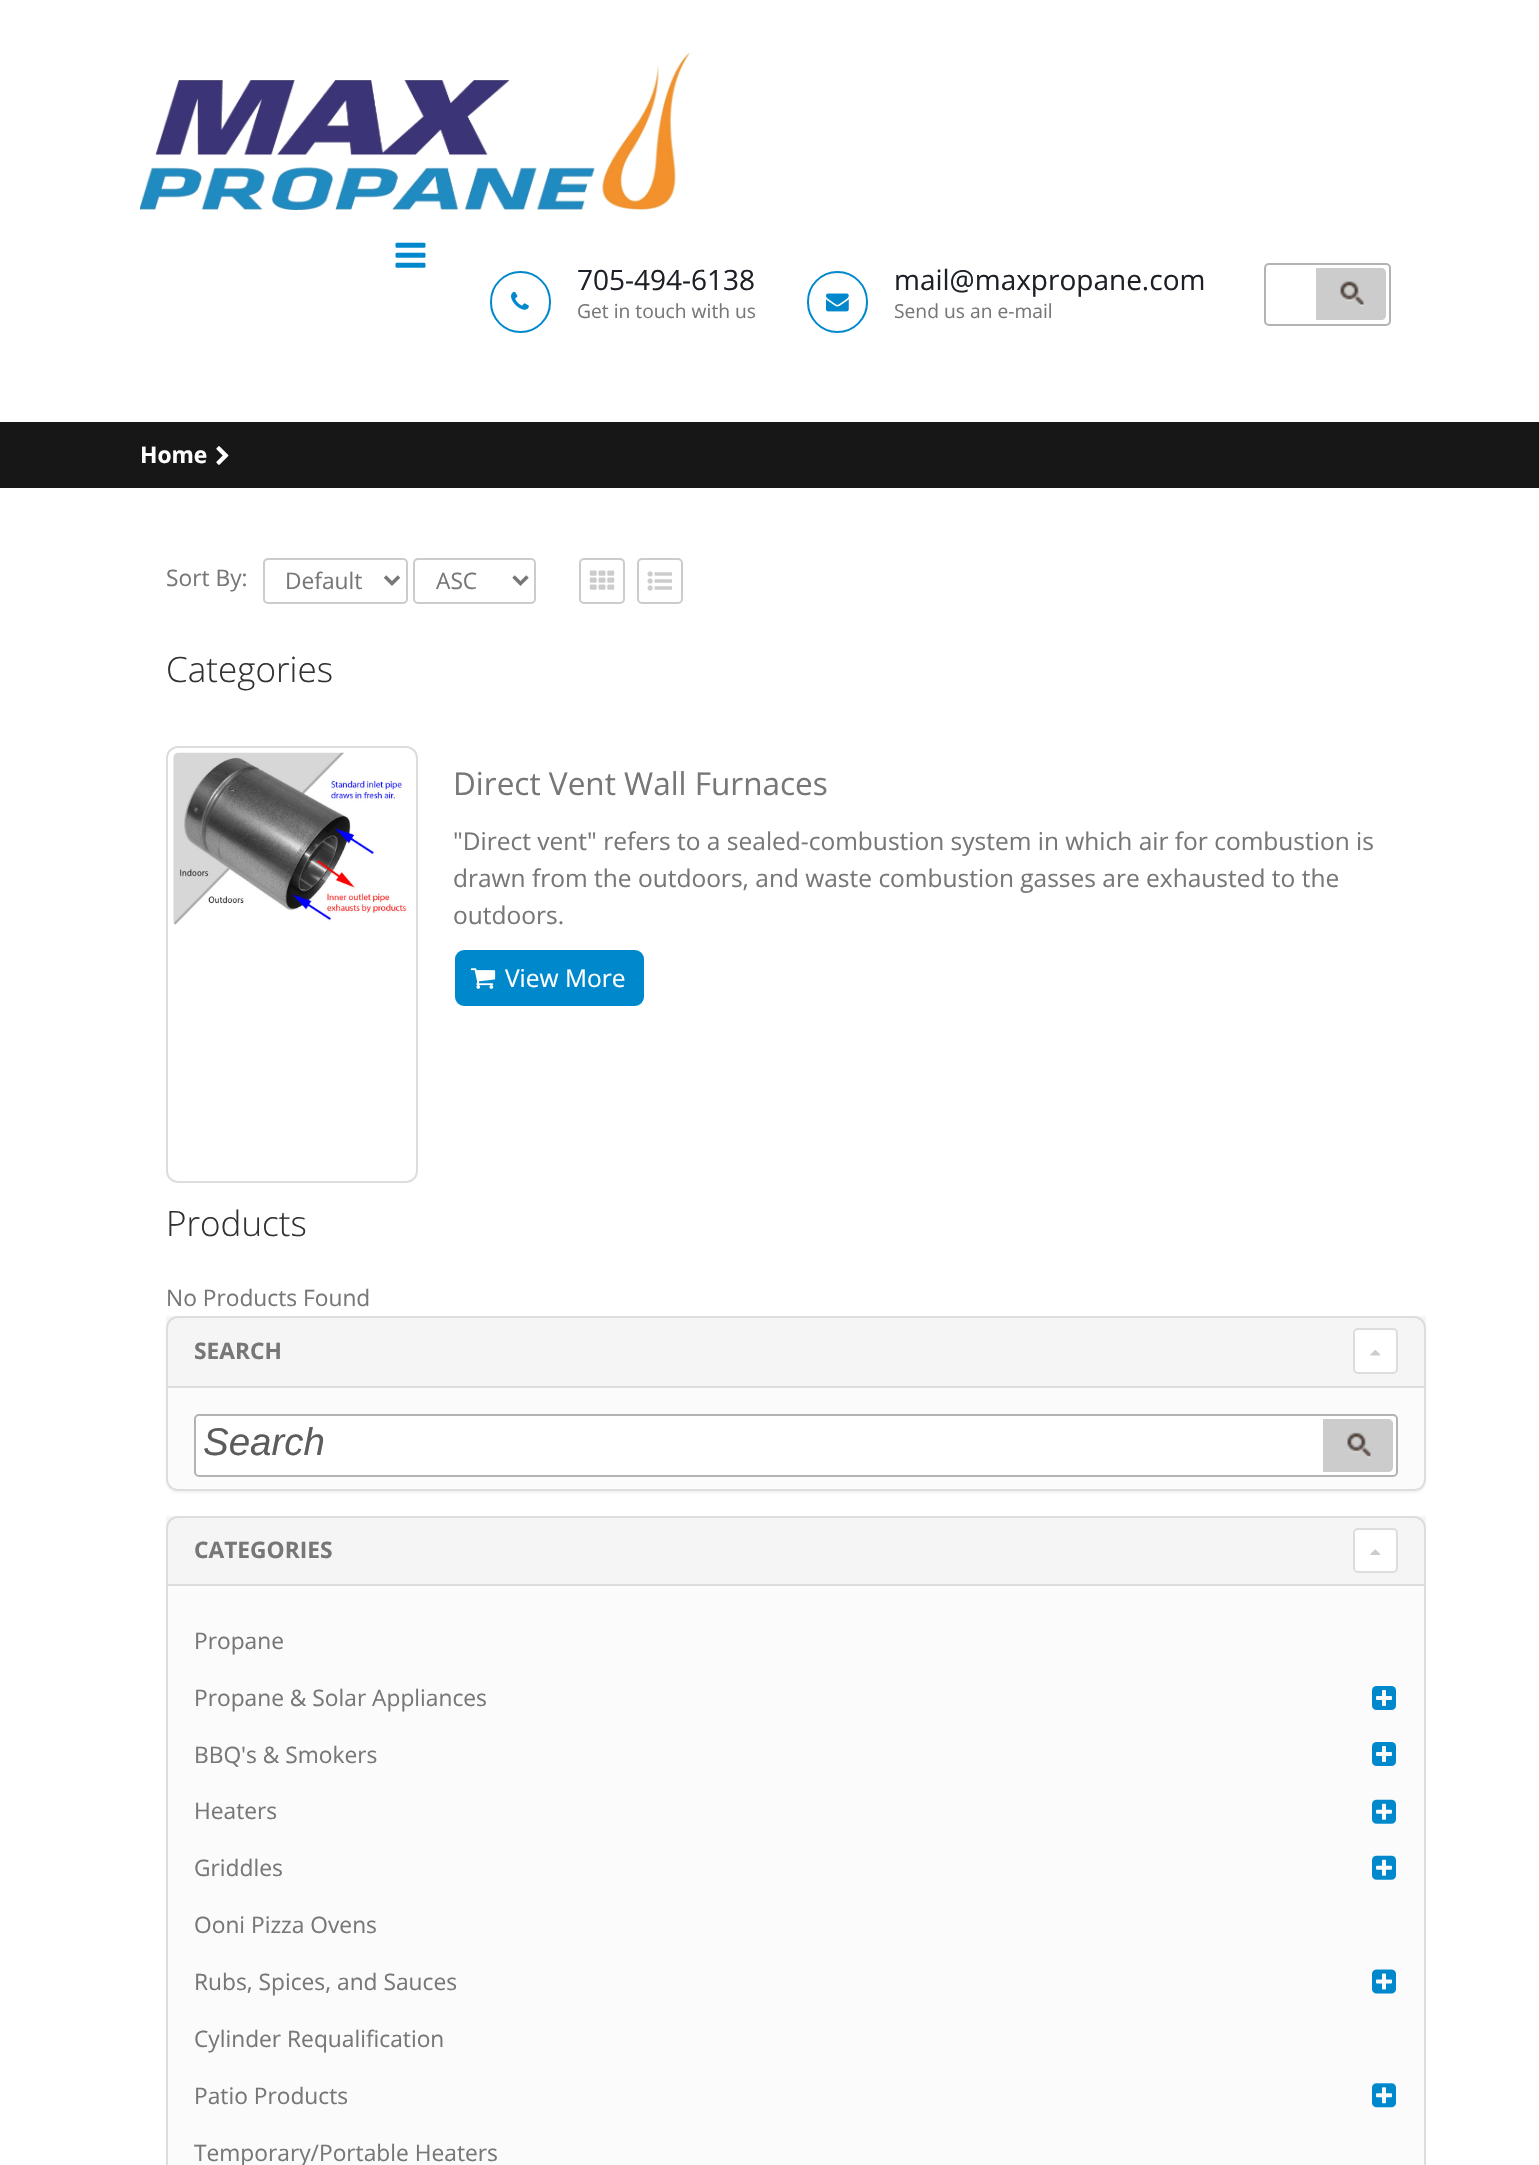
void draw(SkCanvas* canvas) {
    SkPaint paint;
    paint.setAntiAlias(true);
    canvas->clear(0xFFFFFFFF);
    canvas->drawImageRect(SkImages::DeferredFromEncodedData(SkData::MakeFromFileName("img1.png")), SkRect::MakeXYWH(140, 52, 550, 158), SkSamplingOptions());
    canvas->drawImageRect(SkImages::DeferredFromEncodedData(SkData::MakeFromFileName("img2.png")), SkRect::MakeXYWH(395, 242, 31, 26), SkSamplingOptions());
    paint.setStyle(SkPaint::kStroke_Style);
    paint.setStrokeWidth(2);
    paint.setColor(0xFF0088CC);
    canvas->drawRoundRect(SkRect::MakeXYWH(491, 272, 59, 60), 29.5f, 29.5f, paint);
    canvas->drawImageRect(SkImages::DeferredFromEncodedData(SkData::MakeFromFileName("img3.png")), SkRect::MakeXYWH(511, 291, 18, 19), SkSamplingOptions());
    SkFont font1(fontMgr->matchFamilyStyle("Open Sans", SkFontStyle::Normal()), 28);
    font1.setSubpixel(true);
    paint.setStyle(SkPaint::kFill_Style);
    paint.setColor(0xFF1D2127);
    canvas->drawString("705-494-6138", 577, 290, font1, paint);
    SkFont font2(fontMgr->matchFamilyStyle("Open Sans", SkFontStyle::Normal()), 19.25f);
    font2.setSubpixel(true);
    paint.setColor(0xFF777777);
    canvas->drawString("Get in touch with us", 577, 318, font2, paint);
    paint.setStyle(SkPaint::kStroke_Style);
    paint.setColor(0xFF0088CC);
    canvas->drawRoundRect(SkRect::MakeXYWH(808, 272, 59, 60), 29.5f, 29.5f, paint);
    canvas->drawImageRect(SkImages::DeferredFromEncodedData(SkData::MakeFromFileName("img4.png")), SkRect::MakeXYWH(826, 293, 23, 19), SkSamplingOptions());
    paint.setStyle(SkPaint::kFill_Style);
    paint.setColor(0xFF1D2127);
    canvas->drawString("mail@maxpropane.com", 894, 290, font1, paint);
    paint.setColor(0xFF777777);
    canvas->drawString("Send us an e-mail", 894, 318, font2, paint);
    paint.setStyle(SkPaint::kStroke_Style);
    paint.setColor(0xFFB3B3B3);
    canvas->drawRoundRect(SkRect::MakeXYWH(1265, 264, 125, 61), 4, 4, paint);
    paint.setStyle(SkPaint::kFill_Style);
    paint.setColor(0xFFCCCCCC);
    canvas->drawPath(SkPathBuilder().moveTo(1316, 268).lineTo(1381, 268).cubicTo(1384, 268, 1386, 270, 1386, 273).lineTo(1386, 315).cubicTo(1386, 318, 1384, 320, 1381, 320).lineTo(1316, 320).close().detach(), paint);
    canvas->drawImageRect(SkImages::DeferredFromEncodedData(SkData::MakeFromFileName("img5.png")), SkRect::MakeXYWH(1340, 281, 24, 26), SkSamplingOptions());
    paint.setColor(0xFF171717);
    canvas->drawRect(SkRect::MakeXYWH(0, 422, 1539, 66), paint);
    SkFont font3(fontMgr->matchFamilyStyle("Open Sans", SkFontStyle::Bold()), 22.75f);
    font3.setSubpixel(true);
    paint.setColor(0xFFFFFFFF);
    canvas->drawString("Home", 140, 463, font3, paint);
    canvas->drawImageRect(SkImages::DeferredFromEncodedData(SkData::MakeFromFileName("img6.png")), SkRect::MakeXYWH(216, 446, 13, 19), SkSamplingOptions());
    SkFont font4(fontMgr->matchFamilyStyle("Open Sans", SkFontStyle::Normal()), 22.75f);
    font4.setSubpixel(true);
    paint.setColor(0xFF777777);
    canvas->drawString("Sort By:", 166, 586, font4, paint);
    paint.setStyle(SkPaint::kStroke_Style);
    paint.setColor(0xFFCCCCCC);
    canvas->drawRoundRect(SkRect::MakeXYWH(264, 559, 143, 44), 4, 4, paint);
    paint.setStrokeWidth(3.5f);
    paint.setColor(0xFF777777);
    canvas->drawPath(SkPathBuilder().moveTo(385, 576.5f).lineTo(392, 583.5f).lineTo(399, 576.5f).detach(), paint);
    paint.setStyle(SkPaint::kFill_Style);
    canvas->drawString("Default", 285, 589, font4, paint);
    paint.setStyle(SkPaint::kStroke_Style);
    paint.setStrokeWidth(2);
    paint.setColor(0xFFCCCCCC);
    canvas->drawRoundRect(SkRect::MakeXYWH(414, 559, 121, 44), 4, 4, paint);
    paint.setStrokeWidth(3.5f);
    paint.setColor(0xFF777777);
    canvas->drawPath(SkPathBuilder().moveTo(513.5f, 576.5f).lineTo(520.5f, 583.5f).lineTo(527.5f, 576.5f).detach(), paint);
    paint.setStyle(SkPaint::kFill_Style);
    canvas->drawString("ASC", 436, 589, font4, paint);
    paint.setStyle(SkPaint::kStroke_Style);
    paint.setStrokeWidth(2);
    paint.setColor(0xFFCCCCCC);
    canvas->drawRoundRect(SkRect::MakeXYWH(580, 559, 44, 44), 4, 4, paint);
    canvas->drawImageRect(SkImages::DeferredFromEncodedData(SkData::MakeFromFileName("img7.png")), SkRect::MakeXYWH(589, 570, 26, 20), SkSamplingOptions());
    canvas->drawRoundRect(SkRect::MakeXYWH(638, 559, 44, 44), 4, 4, paint);
    canvas->drawImageRect(SkImages::DeferredFromEncodedData(SkData::MakeFromFileName("img8.png")), SkRect::MakeXYWH(647, 571, 25, 20), SkSamplingOptions());
    SkFont font5(fontMgr->matchFamilyStyle("Open Sans", SkFontStyle(300, SkFontStyle::kNormal_Width, SkFontStyle::kUpright_Slant)), 35);
    font5.setSubpixel(true);
    paint.setStyle(SkPaint::kFill_Style);
    paint.setColor(0xFF313131);
    canvas->drawString("Categories", 166, 682, font5, paint);
    paint.setStyle(SkPaint::kStroke_Style);
    paint.setColor(0xFFDDDDDD);
    canvas->drawRoundRect(SkRect::MakeXYWH(167, 747, 250, 435), 11, 11, paint);
    canvas->drawImageRect(SkImages::DeferredFromEncodedData(SkData::MakeFromFileName("img9.png")), SkRect::MakeXYWH(173, 752, 235, 173), SkSamplingOptions());
    SkFont font6(fontMgr->matchFamilyStyle("Open Sans", SkFontStyle::Normal()), 31.5f);
    font6.setSubpixel(true);
    paint.setStyle(SkPaint::kFill_Style);
    paint.setColor(0xFF777777);
    canvas->drawString("Direct Vent Wall Furnaces", 453, 795, font6, paint);
    SkFont font7(fontMgr->matchFamilyStyle("Open Sans", SkFontStyle::Normal()), 24.5f);
    font7.setSubpixel(true);
    canvas->drawString("\"Direct vent\" refers to a sealed-combustion system in which air for combustion is", 453, 850, font7, paint);
    canvas->drawString("drawn from the outdoors, and waste combustion gasses are exhausted to the", 453, 887, font7, paint);
    canvas->drawString("outdoors.", 453, 924, font7, paint);
    paint.setColor(0xFF0088CC);
    canvas->drawRoundRect(SkRect::MakeXYWH(456, 951, 187, 54), 8, 8, paint);
    paint.setStyle(SkPaint::kStroke_Style);
    canvas->drawRoundRect(SkRect::MakeXYWH(456, 951, 187, 54), 8, 8, paint);
    canvas->drawImageRect(SkImages::DeferredFromEncodedData(SkData::MakeFromFileName("img10.png")), SkRect::MakeXYWH(470, 968, 26, 21), SkSamplingOptions());
    paint.setStyle(SkPaint::kFill_Style);
    paint.setColor(0xFFFFFFFF);
    canvas->drawString("View More", 505, 987, font7, paint);
    paint.setColor(0xFF313131);
    canvas->drawString("Products", 166, 1236, font5, paint);
    paint.setColor(0xFF777777);
    canvas->drawString("No Products Found", 166, 1306, font4, paint);
    paint.setColor(0x0D000000);
    paint.setMaskFilter(SkMaskFilter::MakeBlur(kNormal_SkBlurStyle, 1));
    canvas->drawRoundRect(SkRect::MakeXYWH(166, 1318, 1260, 175), 12, 12, paint);
    paint.setMaskFilter(nullptr);
    paint.setColor(0xFFF5F5F5);
    canvas->drawRect(SkRect::MakeXYWH(166, 1316, 1260, 70), paint);
    paint.setStyle(SkPaint::kStroke_Style);
    paint.setColor(0xFFDDDDDD);
    canvas->drawPath(SkPathBuilder().moveTo(178, 1317).lineTo(1414, 1317).cubicTo(1420, 1317, 1425, 1322, 1425, 1328).lineTo(1425, 1387).lineTo(167, 1387).lineTo(167, 1328).cubicTo(167, 1322, 172, 1317, 178, 1317).close().detach(), paint);
    paint.setStyle(SkPaint::kFill_Style);
    paint.setColor(0xFF777777);
    canvas->drawString("SEARCH", 194, 1359, font3, paint);
    paint.setColor(0xFFFFFFFF);
    canvas->drawRoundRect(SkRect::MakeXYWH(1354, 1329, 43, 44), 4, 4, paint);
    paint.setStyle(SkPaint::kStroke_Style);
    paint.setColor(0xFFDDDDDD);
    canvas->drawRoundRect(SkRect::MakeXYWH(1354, 1329, 43, 44), 4, 4, paint);
    canvas->drawImageRect(SkImages::DeferredFromEncodedData(SkData::MakeFromFileName("img11.png")), SkRect::MakeXYWH(1370, 1350, 11, 6), SkSamplingOptions());
    paint.setStyle(SkPaint::kFill_Style);
    paint.setColor(0xFFFBFBFB);
    canvas->drawPath(SkPathBuilder().moveTo(166, 1388).lineTo(1426, 1388).lineTo(1426, 1479).cubicTo(1426, 1485.5f, 1420.5f, 1491, 1414, 1491).lineTo(178, 1491).cubicTo(171.5f, 1491, 166, 1485.5f, 166, 1479).close().detach(), paint);
    paint.setColor(0xFFDDDDDD);
    canvas->drawPath(SkPathBuilder(SkPathFillType::kEvenOdd).moveTo(166, 1388).lineTo(1426, 1388).lineTo(1426, 1479).cubicTo(1426, 1486, 1421, 1491, 1414, 1491).lineTo(178, 1491).cubicTo(172, 1491, 166, 1486, 166, 1479).close().moveTo(168, 1388).lineTo(1424, 1388).lineTo(1424, 1479).cubicTo(1424, 1485, 1420, 1489, 1414, 1489).lineTo(178, 1489).cubicTo(173, 1489, 168, 1485, 168, 1479).close().detach(), paint);
    paint.setColor(0xFFFFFFFF);
    canvas->drawRoundRect(SkRect::MakeXYWH(195, 1415, 1202, 61), 4, 4, paint);
    paint.setStyle(SkPaint::kStroke_Style);
    paint.setColor(0xFFB3B3B3);
    canvas->drawRoundRect(SkRect::MakeXYWH(195, 1415, 1202, 61), 4, 4, paint);
    SkFont font8(fontMgr->matchFamilyStyle("Liberation Sans", SkFontStyle::Italic()), 38.5f);
    font8.setSubpixel(true);
    paint.setStyle(SkPaint::kFill_Style);
    paint.setColor(0xFF5C5C5C);
    canvas->drawString("Search", 203, 1455, font8, paint);
    paint.setColor(0xFFCCCCCC);
    canvas->drawPath(SkPathBuilder().moveTo(1323, 1419).lineTo(1388, 1419).cubicTo(1391, 1419, 1393, 1421, 1393, 1424).lineTo(1393, 1467).cubicTo(1393, 1470, 1391, 1472, 1388, 1472).lineTo(1323, 1472).close().detach(), paint);
    canvas->drawImageRect(SkImages::DeferredFromEncodedData(SkData::MakeFromFileName("img12.png")), SkRect::MakeXYWH(1347, 1432, 24, 26), SkSamplingOptions());
    paint.setColor(0xFFF5F5F5);
    canvas->drawRect(SkRect::MakeXYWH(166, 1516, 1260, 68), paint);
    paint.setStyle(SkPaint::kStroke_Style);
    paint.setColor(0xFFDDDDDD);
    canvas->drawPath(SkPathBuilder().moveTo(178, 1517).lineTo(1414, 1517).cubicTo(1420, 1517, 1425, 1522, 1425, 1528).lineTo(1425, 1585).lineTo(167, 1585).lineTo(167, 1528).cubicTo(167, 1522, 172, 1517, 178, 1517).close().detach(), paint);
    paint.setStyle(SkPaint::kFill_Style);
    paint.setColor(0xFF777777);
    canvas->drawString("CATEGORIES", 194, 1558, font3, paint);
    paint.setColor(0xFFFFFFFF);
    canvas->drawRoundRect(SkRect::MakeXYWH(1354, 1529, 43, 43), 4, 4, paint);
    paint.setStyle(SkPaint::kStroke_Style);
    paint.setColor(0xFFDDDDDD);
    canvas->drawRoundRect(SkRect::MakeXYWH(1354, 1529, 43, 43), 4, 4, paint);
    canvas->drawImageRect(SkImages::DeferredFromEncodedData(SkData::MakeFromFileName("img13.png")), SkRect::MakeXYWH(1370, 1549, 11, 6), SkSamplingOptions());
    paint.setStyle(SkPaint::kFill_Style);
    paint.setColor(0xFFFBFBFB);
    canvas->drawRect(SkRect::MakeXYWH(168, 1586, 1256, 579), paint);
    paint.setColor(0xFFDDDDDD);
    canvas->drawPath(SkPathBuilder(SkPathFillType::kEvenOdd).moveTo(166, 1586).lineTo(1426, 1586).lineTo(1426, 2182).cubicTo(1426, 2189, 1421, 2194, 1414, 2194).lineTo(178, 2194).cubicTo(172, 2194, 166, 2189, 166, 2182).close().moveTo(168, 1586).lineTo(1424, 1586).lineTo(1424, 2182).cubicTo(1424, 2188, 1420, 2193, 1414, 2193).lineTo(178, 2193).cubicTo(173, 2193, 168, 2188, 168, 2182).close().detach(), paint);
    paint.setColor(0xFF777777);
    canvas->drawString("Propane", 194, 1649, font4, paint);
    canvas->drawString("Propane & Solar Appliances", 194, 1706, font4, paint);
    canvas->drawImageRect(SkImages::DeferredFromEncodedData(SkData::MakeFromFileName("img14.png")), SkRect::MakeXYWH(1372, 1686, 24, 24), SkSamplingOptions());
    canvas->drawString("BBQ's & Smokers", 194, 1763, font4, paint);
    canvas->drawImageRect(SkImages::DeferredFromEncodedData(SkData::MakeFromFileName("img14.png")), SkRect::MakeXYWH(1372, 1742, 24, 24), SkSamplingOptions());
    canvas->drawString("Heaters", 194, 1819, font4, paint);
    canvas->drawImageRect(SkImages::DeferredFromEncodedData(SkData::MakeFromFileName("img15.png")), SkRect::MakeXYWH(1372, 1799, 24, 25), SkSamplingOptions());
    canvas->drawString("Griddles", 194, 1876, font4, paint);
    canvas->drawImageRect(SkImages::DeferredFromEncodedData(SkData::MakeFromFileName("img15.png")), SkRect::MakeXYWH(1372, 1855, 24, 25), SkSamplingOptions());
    canvas->drawString("Ooni Pizza Ovens", 194, 1933, font4, paint);
    canvas->drawString("Rubs, Spices, and Sauces", 194, 1990, font4, paint);
    canvas->drawImageRect(SkImages::DeferredFromEncodedData(SkData::MakeFromFileName("img16.png")), SkRect::MakeXYWH(1372, 1969, 24, 25), SkSamplingOptions());
    canvas->drawString("Cylinder Requalification", 194, 2047, font4, paint);
    canvas->drawString("Patio Products", 194, 2104, font4, paint);
    canvas->drawImageRect(SkImages::DeferredFromEncodedData(SkData::MakeFromFileName("img17.png")), SkRect::MakeXYWH(1372, 2083, 24, 25), SkSamplingOptions());
    canvas->drawString("Temporary/Portable Heaters", 194, 2161, font4, paint);
}
